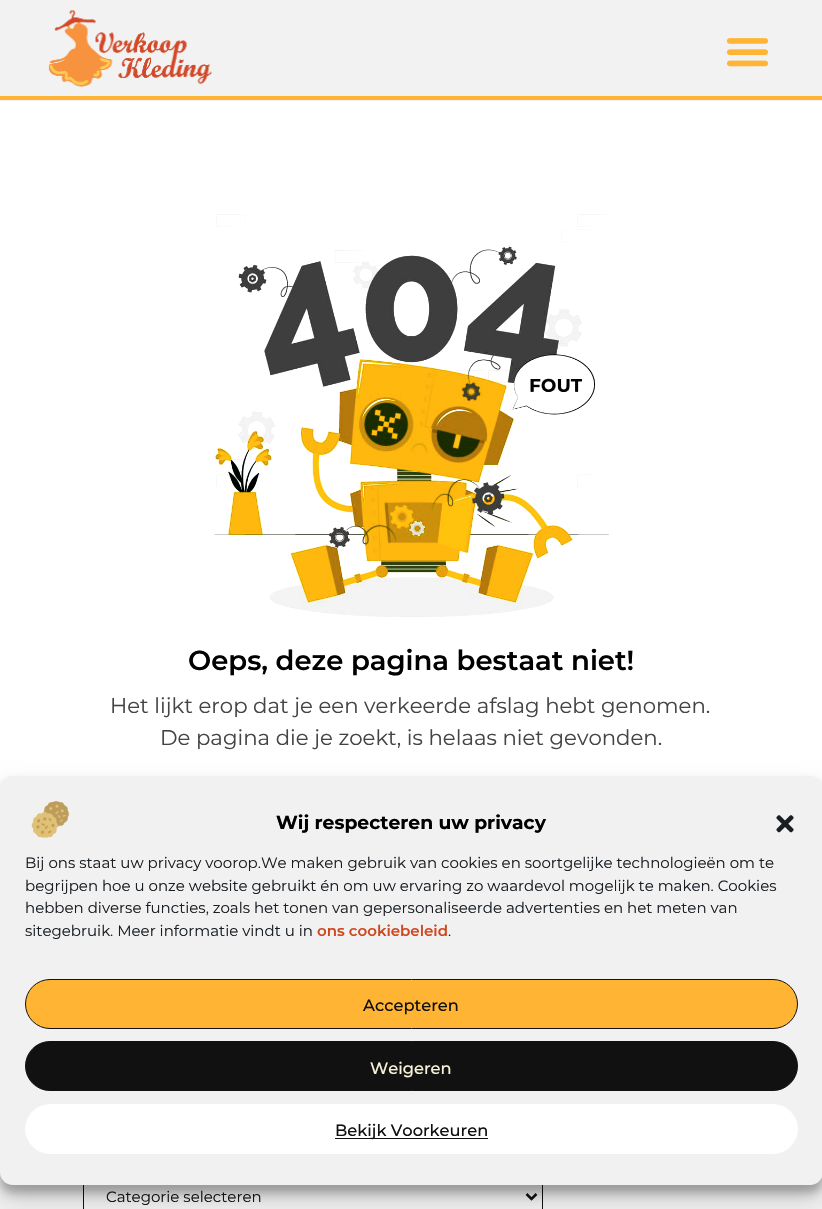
void draw(SkCanvas* canvas) {
    SkPaint paint;
    paint.setAntiAlias(true);
    canvas->clear(0xFFFFFFFF);
    paint.setColor(0x54000000);
    paint.setMaskFilter(SkMaskFilter::MakeBlur(kNormal_SkBlurStyle, 0.5f));
    canvas->drawRect(SkRect::MakeXYWH(0, 0, 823, 100), paint);
    paint.setMaskFilter(nullptr);
    paint.setColor(0xFFF2F2F2);
    canvas->drawRect(SkRect::MakeXYWH(0, 0, 822, 96), paint);
    paint.setColor(0xFFFFB433);
    canvas->drawRect(SkRect::MakeXYWH(0, 96, 822, 4), paint);
    canvas->drawImageRect(SkImages::DeferredFromEncodedData(SkData::MakeFromFileName("img1.png")), SkRect::MakeXYWH(48, 10, 164, 77), SkSamplingOptions());
    canvas->drawImageRect(SkImages::DeferredFromEncodedData(SkData::MakeFromFileName("img2.png")), SkRect::MakeXYWH(726, 38, 43, 29), SkSamplingOptions());
    canvas->drawImageRect(SkImages::DeferredFromEncodedData(SkData::MakeFromFileName("img3.png")), SkRect::MakeXYWH(214, 214, 395, 403), SkSamplingOptions());
    SkFont font1(fontMgr->matchFamilyStyle("Montserrat", SkFontStyle(600, SkFontStyle::kNormal_Width, SkFontStyle::kUpright_Slant)), 27.5f);
    font1.setSubpixel(true);
    paint.setColor(0xFF000000);
    canvas->drawString("Oeps, deze pagina bestaat niet!", 188, 670, font1, paint);
    SkFont font2(fontMgr->matchFamilyStyle("Montserrat", SkFontStyle::Normal()), 21.25f);
    font2.setSubpixel(true);
    paint.setColor(0xFF444444);
    canvas->drawString("Het lijkt erop dat je een verkeerde afslag hebt genomen.", 110, 713, font2, paint);
    canvas->drawString("De pagina die je zoekt, is helaas niet gevonden.", 160, 745, font2, paint);
    paint.setColor(0xFFF2F2F2);
    canvas->drawRect(SkRect::MakeXYWH(0, 1172, 822, 37), paint);
    paint.setStyle(SkPaint::kStroke_Style);
    paint.setStrokeWidth(1);
    paint.setColor(0xFF111111);
    canvas->drawRect(SkRect::MakeXYWH(83.5f, 1175.5f, 459, 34), paint);
    paint.setStrokeWidth(2.5f);
    canvas->drawPath(SkPathBuilder().moveTo(526.5f, 1194).lineTo(531.5f, 1199).lineTo(536.5f, 1194).detach(), paint);
    paint.setStyle(SkPaint::kFill_Style);
    paint.setColor(0x3B000000);
    paint.setMaskFilter(SkMaskFilter::MakeBlur(kNormal_SkBlurStyle, 4));
    canvas->drawRoundRect(SkRect::MakeXYWH(0, 784, 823, 409), 13, 13, paint);
    paint.setMaskFilter(nullptr);
    paint.setColor(0x30000000);
    paint.setMaskFilter(SkMaskFilter::MakeBlur(kNormal_SkBlurStyle, 12.5f));
    canvas->drawRoundRect(SkRect::MakeXYWH(0, 789, 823, 409), 13, 13, paint);
    paint.setMaskFilter(nullptr);
    paint.setColor(0xFFF1F1F1);
    canvas->drawRoundRect(SkRect::MakeXYWH(0, 776, 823, 409), 13, 13, paint);
    canvas->drawImageRect(SkImages::DeferredFromEncodedData(SkData::MakeFromFileName("img4.png")), SkRect::MakeXYWH(31, 801, 39, 37), SkSamplingOptions());
    SkFont font3(fontMgr->matchFamilyStyle("Montserrat", SkFontStyle::Bold()), 18.75f);
    font3.setSubpixel(true);
    paint.setColor(0xFF000000);
    canvas->drawString("Wij respecteren uw privacy", 276, 829, font3, paint);
    canvas->drawImageRect(SkImages::DeferredFromEncodedData(SkData::MakeFromFileName("img5.png")), SkRect::MakeXYWH(776, 815, 18, 18), SkSamplingOptions());
    SkFont font4(fontMgr->matchFamilyStyle("Montserrat", SkFontStyle::Normal()), 15);
    font4.setSubpixel(true);
    paint.setColor(0xFF191E23);
    canvas->drawString("Bij ons staat uw privacy voorop.We maken gebruik van cookies en soortgelijke technologieën om te", 25, 868, font4, paint);
    canvas->drawString("begrijpen hoe u onze website gebruikt én om uw ervaring zo waardevol mogelijk te maken. Cookies", 25, 891, font4, paint);
    canvas->drawString("hebben diverse functies, zoals het tonen van gepersonaliseerde advertenties en het meten van", 25, 913, font4, paint);
    canvas->drawString("sitegebruik. Meer informatie vindt u in", 25, 936, font4, paint);
    SkFont font5(fontMgr->matchFamilyStyle("Montserrat", SkFontStyle(600, SkFontStyle::kNormal_Width, SkFontStyle::kUpright_Slant)), 15);
    font5.setSubpixel(true);
    paint.setColor(0xFFCF4820);
    canvas->drawString("ons cookiebeleid", 317, 936, font5, paint);
    paint.setColor(0xFF191E23);
    canvas->drawString(".", 448, 936, font4, paint);
    paint.setColor(0xFFFFB433);
    canvas->drawRoundRect(SkRect::MakeXYWH(25.5f, 979.5f, 772, 49), 24.5f, 24.5f, paint);
    paint.setStyle(SkPaint::kStroke_Style);
    paint.setStrokeWidth(1);
    paint.setColor(0xFF111111);
    canvas->drawRoundRect(SkRect::MakeXYWH(25.5f, 979.5f, 772, 49), 24.5f, 24.5f, paint);
    SkFont font6(fontMgr->matchFamilyStyle("Montserrat", SkFontStyle(500, SkFontStyle::kNormal_Width, SkFontStyle::kUpright_Slant)), 16.25f);
    font6.setSubpixel(true);
    paint.setStyle(SkPaint::kFill_Style);
    canvas->drawString("Accepteren", 363, 1011, font6, paint);
    canvas->drawRoundRect(SkRect::MakeXYWH(25.5f, 1041.5f, 772, 49), 24.5f, 24.5f, paint);
    paint.setStyle(SkPaint::kStroke_Style);
    canvas->drawRoundRect(SkRect::MakeXYWH(25.5f, 1041.5f, 772, 49), 24.5f, 24.5f, paint);
    paint.setStyle(SkPaint::kFill_Style);
    paint.setColor(0xFFF8F3D9);
    canvas->drawString("Weigeren", 370, 1074, font6, paint);
    paint.setColor(0xFFFFFFFF);
    canvas->drawRoundRect(SkRect::MakeXYWH(25.5f, 1104.5f, 772, 49), 24.5f, 24.5f, paint);
    paint.setStyle(SkPaint::kStroke_Style);
    canvas->drawRoundRect(SkRect::MakeXYWH(25.5f, 1104.5f, 772, 49), 24.5f, 24.5f, paint);
    paint.setStyle(SkPaint::kFill_Style);
    paint.setColor(0xFF111111);
    canvas->drawRect(SkRect::MakeXYWH(335, 1138, 153, 1), paint);
    canvas->drawString("Bekijk Voorkeuren", 335, 1136, font6, paint);
    canvas->drawString("Categorie selecteren", 106, 1202, font4, paint);
}
